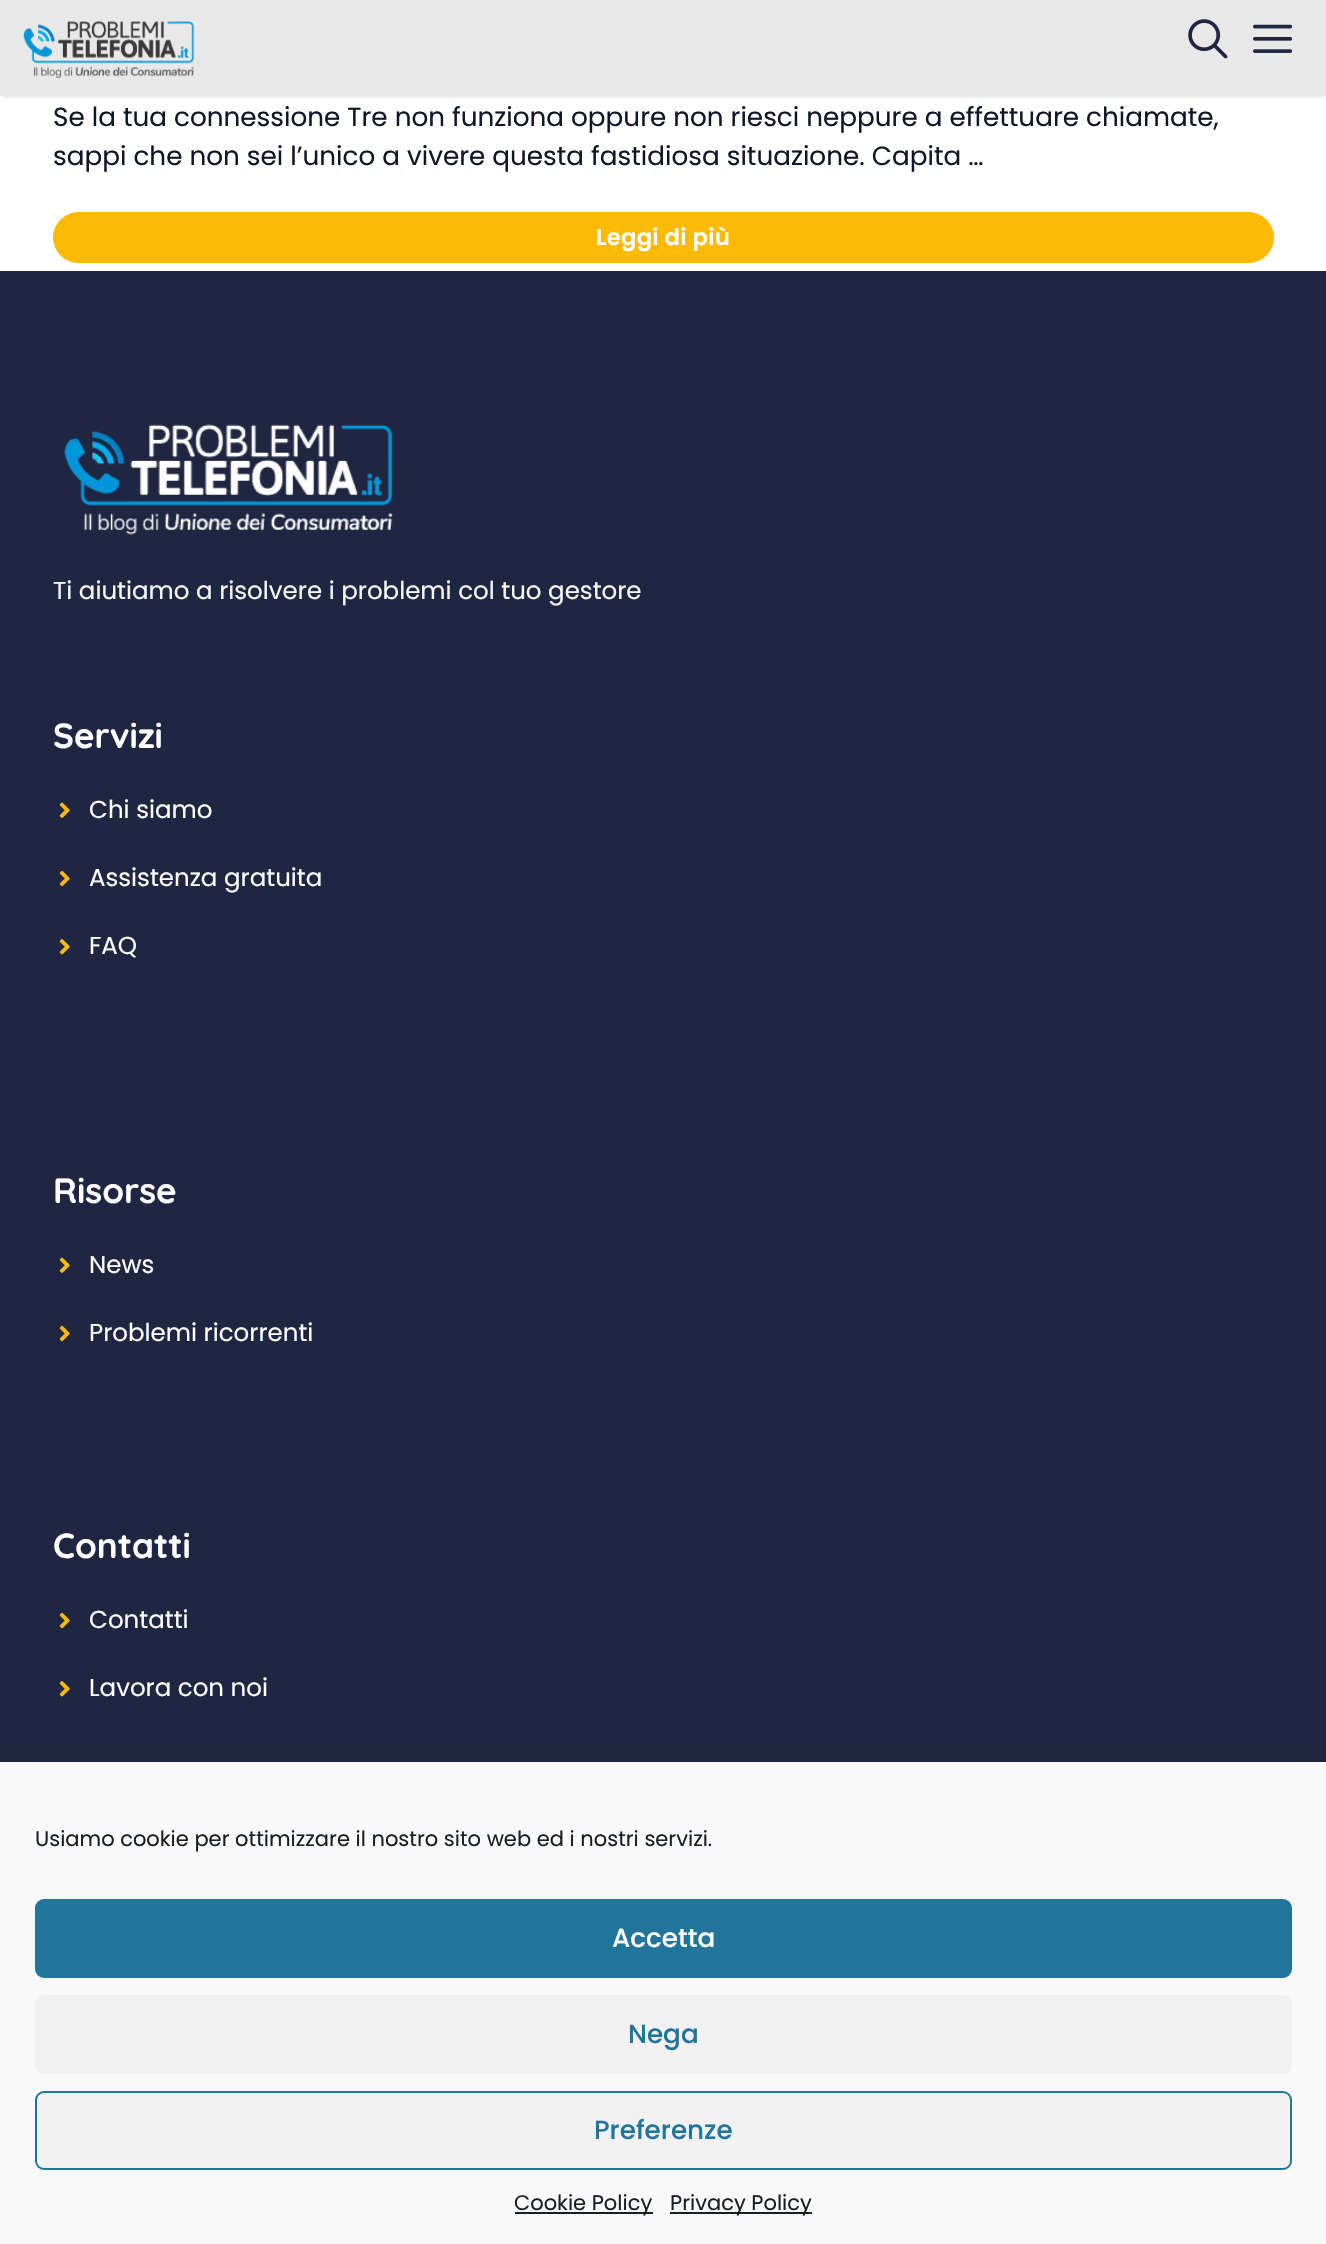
void draw(SkCanvas* canvas) {
    SkPaint paint;
    paint.setAntiAlias(true);
    auto spacedText = [&](const char* s, float x, float y, const SkFont& font, const SkPaint& ink, float letter, float word) {
        std::vector<SkGlyphID> glyphs(font.countText(s, strlen(s), SkTextEncoding::kUTF8));
        std::vector<float> xs(glyphs.size());
        font.textToGlyphs(s, strlen(s), SkTextEncoding::kUTF8, glyphs);
        font.getXPos(glyphs, xs, x);
        float extra = 0;
        for (size_t i = 0; i < glyphs.size(); i++) {
            xs[i] += extra;
            extra += letter + word * (glyphs[i] == font.unicharToGlyph(' '));
        }
        canvas->drawTextBlob(SkTextBlob::MakeFromPosHGlyphs(glyphs, xs, y, font), 0, 0, ink);
    };
    canvas->clear(0xFFFFFFFF);
    paint.setColor(0x33000000);
    paint.setMaskFilter(SkMaskFilter::MakeBlur(kNormal_SkBlurStyle, 2));
    canvas->drawRect(SkRect::MakeXYWH(4, 7, 1319, 89), paint);
    paint.setMaskFilter(nullptr);
    paint.setColor(0xFFE8E8E8);
    canvas->drawRect(SkRect::MakeXYWH(0, 0, 1326, 96), paint);
    canvas->drawImageRect(SkImages::DeferredFromEncodedData(SkData::MakeFromFileName("img1.png")), SkRect::MakeXYWH(23, 21, 172, 58), SkSamplingOptions());
    canvas->drawImageRect(SkImages::DeferredFromEncodedData(SkData::MakeFromFileName("img2.png")), SkRect::MakeXYWH(1188, 19, 40, 40), SkSamplingOptions());
    canvas->drawImageRect(SkImages::DeferredFromEncodedData(SkData::MakeFromFileName("img3.png")), SkRect::MakeXYWH(1253, 24, 39, 29), SkSamplingOptions());
    SkFont font1(fontMgr->matchFamilyStyle("Poppins", SkFontStyle::Normal()), 26.25f);
    font1.setSubpixel(true);
    paint.setColor(0xFF101528);
    canvas->drawString("Se la tua connessione Tre non funziona oppure non riesci neppure a effettuare chiamate,", 53, 126, font1, paint);
    canvas->drawString("sappi che non sei l’unico a vivere questa fastidiosa situazione. Capita …", 53, 165, font1, paint);
    paint.setColor(0xFFFCBA04);
    canvas->drawRoundRect(SkRect::MakeXYWH(53, 212, 1221, 51), 25.5f, 25.5f, paint);
    SkFont font2(fontMgr->matchFamilyStyle("Poppins", SkFontStyle(600, SkFontStyle::kNormal_Width, SkFontStyle::kUpright_Slant)), 22.75f);
    font2.setSubpixel(true);
    paint.setColor(0xFFFFFFFF);
    spacedText("Leggi di più", 596, 245, font2, paint, 0.25f, 0);
    paint.setColor(0xFF1F2641);
    canvas->drawRect(SkRect::MakeXYWH(0, 271, 1326, 1491), paint);
    canvas->drawImageRect(SkImages::DeferredFromEncodedData(SkData::MakeFromFileName("img4.png")), SkRect::MakeXYWH(64, 424, 329, 111), SkSamplingOptions());
    SkFont font3(fontMgr->matchFamilyStyle("Poppins", SkFontStyle::Normal()), 24.5f);
    font3.setSubpixel(true);
    paint.setColor(0xFFF7F8F9);
    canvas->drawString("Ti aiutiamo a risolvere i problemi col tuo gestore", 53, 599, font3, paint);
    SkFont font4(fontMgr->matchFamilyStyle("Quicksand", SkFontStyle::Bold()), 35);
    font4.setSubpixel(true);
    paint.setColor(0xFFFFFFFF);
    canvas->drawString("Servizi", 53, 748, font4, paint);
    canvas->drawImageRect(SkImages::DeferredFromEncodedData(SkData::MakeFromFileName("img5.png")), SkRect::MakeXYWH(59, 802, 11, 16), SkSamplingOptions());
    canvas->drawString("Chi siamo", 89, 818, font3, paint);
    canvas->drawImageRect(SkImages::DeferredFromEncodedData(SkData::MakeFromFileName("img6.png")), SkRect::MakeXYWH(59, 870, 11, 17), SkSamplingOptions());
    canvas->drawString("Assistenza gratuita", 89, 886, font3, paint);
    canvas->drawImageRect(SkImages::DeferredFromEncodedData(SkData::MakeFromFileName("img7.png")), SkRect::MakeXYWH(59, 939, 11, 16), SkSamplingOptions());
    canvas->drawString("FAQ", 89, 954, font3, paint);
    canvas->drawString("Risorse", 53, 1203, font4, paint);
    canvas->drawImageRect(SkImages::DeferredFromEncodedData(SkData::MakeFromFileName("img5.png")), SkRect::MakeXYWH(59, 1257, 11, 16), SkSamplingOptions());
    canvas->drawString("News", 89, 1273, font3, paint);
    canvas->drawImageRect(SkImages::DeferredFromEncodedData(SkData::MakeFromFileName("img6.png")), SkRect::MakeXYWH(59, 1325, 11, 17), SkSamplingOptions());
    canvas->drawString("Problemi ricorrenti", 89, 1341, font3, paint);
    canvas->drawString("Contatti", 53, 1558, font4, paint);
    canvas->drawImageRect(SkImages::DeferredFromEncodedData(SkData::MakeFromFileName("img6.png")), SkRect::MakeXYWH(59, 1612, 11, 17), SkSamplingOptions());
    canvas->drawString("Contatti", 89, 1628, font3, paint);
    canvas->drawImageRect(SkImages::DeferredFromEncodedData(SkData::MakeFromFileName("img7.png")), SkRect::MakeXYWH(59, 1681, 11, 16), SkSamplingOptions());
    canvas->drawString("Lavora con noi", 89, 1696, font3, paint);
    paint.setColor(0x30000000);
    paint.setMaskFilter(SkMaskFilter::MakeBlur(kNormal_SkBlurStyle, 17.5f));
    canvas->drawRect(SkRect::MakeXYWH(0, 1780, 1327, 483), paint);
    paint.setMaskFilter(nullptr);
    paint.setColor(0xFFF9F9F9);
    canvas->drawRect(SkRect::MakeXYWH(0, 1764, 1326, 480), paint);
    SkFont font5(fontMgr->matchFamilyStyle("Poppins", SkFontStyle::Normal()), 21);
    font5.setSubpixel(true);
    paint.setColor(0xFF191E23);
    canvas->drawString("Usiamo cookie per ottimizzare il nostro sito web ed i nostri servizi.", 35, 1846, font5, paint);
    paint.setColor(0xFF21759B);
    canvas->drawRoundRect(SkRect::MakeXYWH(36, 1900, 1255, 77), 8, 8, paint);
    paint.setStyle(SkPaint::kStroke_Style);
    paint.setStrokeWidth(2);
    canvas->drawRoundRect(SkRect::MakeXYWH(36, 1900, 1255, 77), 8, 8, paint);
    SkFont font6(fontMgr->matchFamilyStyle("Poppins", SkFontStyle(500, SkFontStyle::kNormal_Width, SkFontStyle::kUpright_Slant)), 26.25f);
    font6.setSubpixel(true);
    paint.setStyle(SkPaint::kFill_Style);
    paint.setColor(0xFFFFFFFF);
    canvas->drawString("Accetta", 612, 1947, font6, paint);
    paint.setColor(0xFFF1F1F1);
    canvas->drawRoundRect(SkRect::MakeXYWH(35, 1995, 1257, 79), 9, 9, paint);
    paint.setColor(0xFF21759B);
    canvas->drawString("Nega", 628, 2043, font6, paint);
    paint.setColor(0xFFF1F1F1);
    canvas->drawRoundRect(SkRect::MakeXYWH(36, 2092, 1255, 77), 8, 8, paint);
    paint.setStyle(SkPaint::kStroke_Style);
    paint.setColor(0xFF21759B);
    canvas->drawRoundRect(SkRect::MakeXYWH(36, 2092, 1255, 77), 8, 8, paint);
    paint.setStyle(SkPaint::kFill_Style);
    canvas->drawString("Preferenze", 594, 2139, font6, paint);
    paint.setColor(0xFF191E23);
    canvas->drawRect(SkRect::MakeXYWH(515, 2212, 138, 2), paint);
    canvas->drawString("Cookie Policy", 514, 2210, font5, paint);
    canvas->drawRect(SkRect::MakeXYWH(670, 2212, 142, 2), paint);
    canvas->drawString("Privacy Policy", 670, 2210, font5, paint);
}
